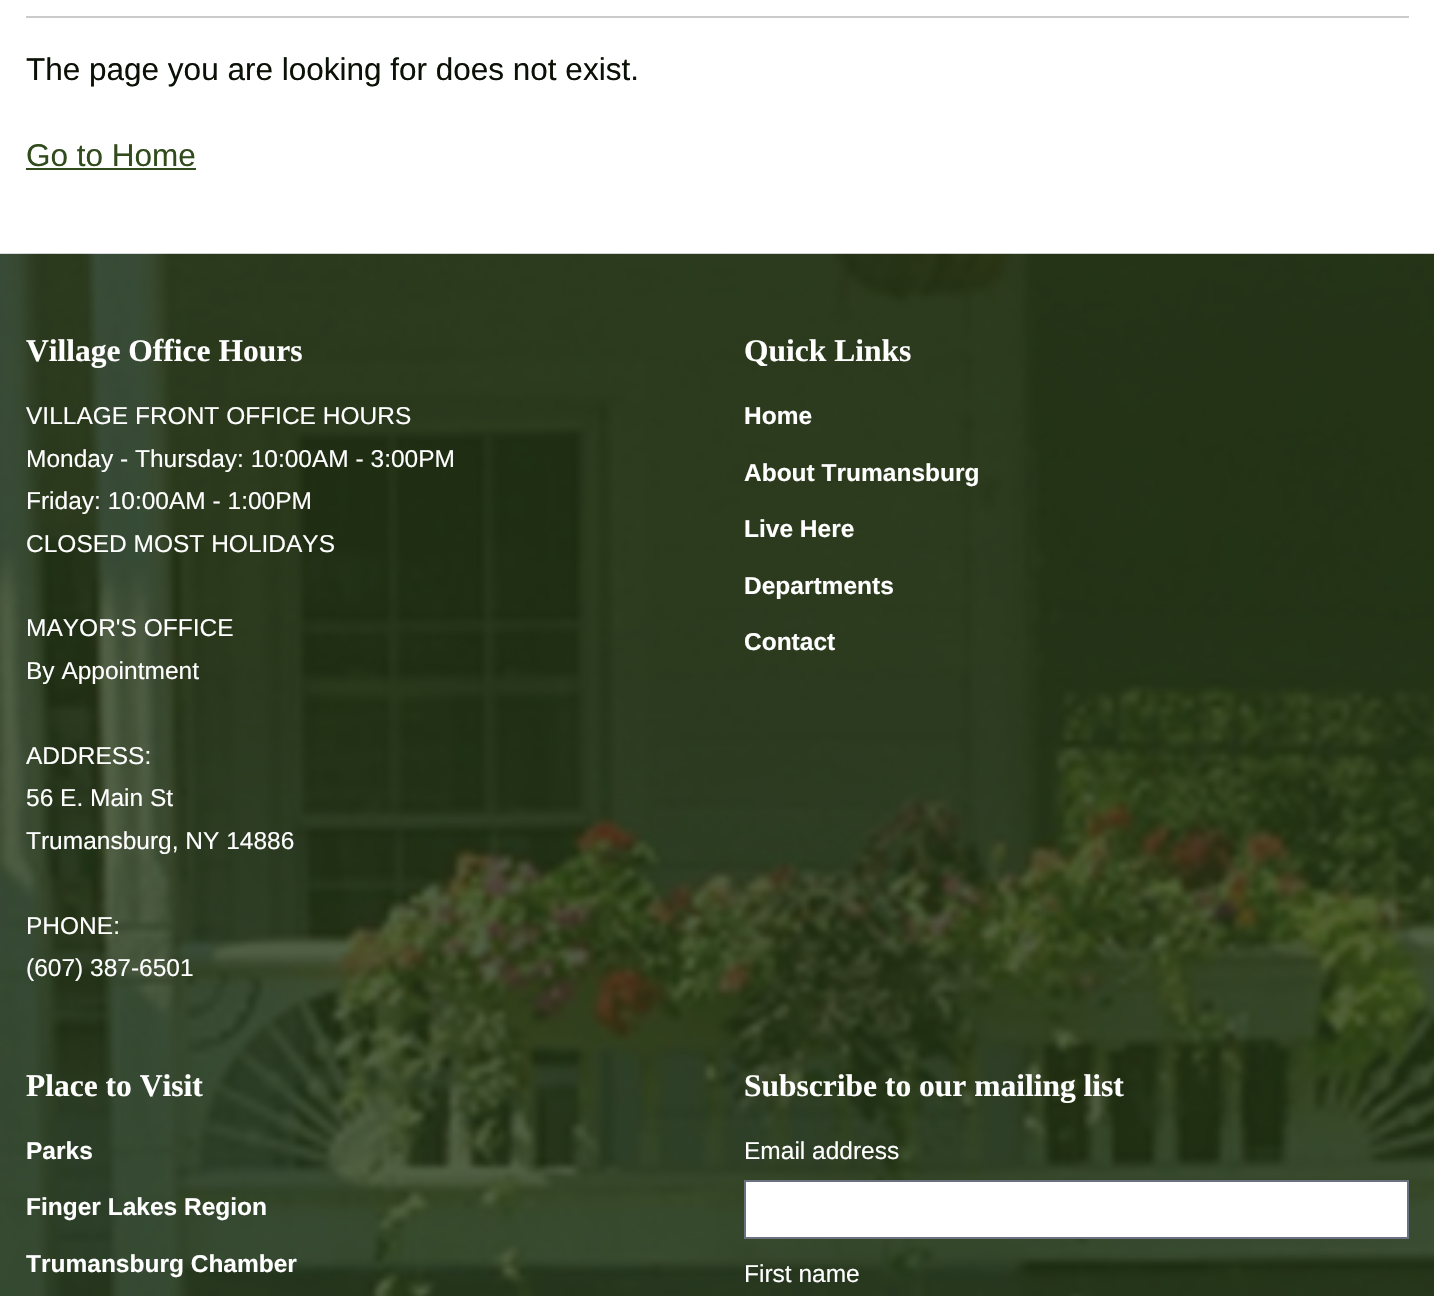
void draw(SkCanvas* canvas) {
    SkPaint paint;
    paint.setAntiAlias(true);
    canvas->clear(0xFFFFFFFF);
    paint.setColor(0xFFCBCBCB);
    canvas->drawRect(SkRect::MakeXYWH(26, 16, 1383, 2), paint);
    SkFont font1(fontMgr->matchFamilyStyle("Liberation Sans", SkFontStyle::Normal()), 31.5f);
    font1.setSubpixel(true);
    paint.setColor(0xFF0B1106);
    canvas->drawString("The page you are looking for does not exist.", 26, 80, font1, paint);
    paint.setColor(0xFF314B1C);
    canvas->drawString("Go to Home", 26, 166, font1, paint);
    canvas->drawRect(SkRect::MakeXYWH(26, 168, 170, 2), paint);
    canvas->drawRect(SkRect::MakeXYWH(0, 254, 1434, 1042), paint);
    canvas->drawImageRect(SkImages::DeferredFromEncodedData(SkData::MakeFromFileName("img1.png")), SkRect::MakeXYWH(0, 253, 1434, 1043), SkSamplingOptions());
    SkFont font2(fontMgr->matchFamilyStyle("Liberation Serif", SkFontStyle::Bold()), 31.5f);
    font2.setSubpixel(true);
    paint.setColor(0xFFFFFFFF);
    canvas->drawString("Village Office Hours", 26, 361, font2, paint);
    SkFont font3(fontMgr->matchFamilyStyle("Liberation Sans", SkFontStyle::Normal()), 24.5f);
    font3.setSubpixel(true);
    canvas->drawString("VILLAGE FRONT OFFICE HOURS", 26, 424, font3, paint);
    canvas->drawString("Monday - Thursday: 10:00AM - 3:00PM", 26, 467, font3, paint);
    canvas->drawString("Friday: 10:00AM - 1:00PM", 26, 509, font3, paint);
    canvas->drawString("CLOSED MOST HOLIDAYS", 26, 552, font3, paint);
    canvas->drawString("MAYOR'S OFFICE", 26, 636, font3, paint);
    canvas->drawString("By Appointment", 26, 679, font3, paint);
    canvas->drawString("ADDRESS:", 26, 764, font3, paint);
    canvas->drawString("56 E. Main St", 26, 806, font3, paint);
    canvas->drawString("Trumansburg, NY 14886", 26, 849, font3, paint);
    canvas->drawString("PHONE:", 26, 934, font3, paint);
    canvas->drawString("(607) 387-6501", 26, 976, font3, paint);
    canvas->drawString("Quick Links", 744, 361, font2, paint);
    SkFont font4(fontMgr->matchFamilyStyle("Liberation Sans", SkFontStyle::Bold()), 24.5f);
    font4.setSubpixel(true);
    canvas->drawString("Home", 744, 424, font4, paint);
    canvas->drawString("About Trumansburg", 744, 481, font4, paint);
    canvas->drawString("Live Here", 744, 537, font4, paint);
    canvas->drawString("Departments", 744, 594, font4, paint);
    canvas->drawString("Contact", 744, 650, font4, paint);
    canvas->drawString("Place to Visit", 26, 1096, font2, paint);
    canvas->drawString("Parks", 26, 1159, font4, paint);
    canvas->drawString("Finger Lakes Region", 26, 1215, font4, paint);
    canvas->drawString("Trumansburg Chamber", 26, 1272, font4, paint);
    canvas->drawString("Subscribe to our mailing list", 744, 1096, font2, paint);
    canvas->drawString("Email address", 744, 1159, font3, paint);
    canvas->drawRect(SkRect::MakeXYWH(745, 1181, 663, 57), paint);
    paint.setStyle(SkPaint::kStroke_Style);
    paint.setStrokeWidth(2);
    paint.setColor(0xFF6A7282);
    canvas->drawRect(SkRect::MakeXYWH(745, 1181, 663, 57), paint);
    paint.setStyle(SkPaint::kFill_Style);
    paint.setColor(0xFFFFFFFF);
    canvas->drawString("First name", 744, 1282, font3, paint);
}
